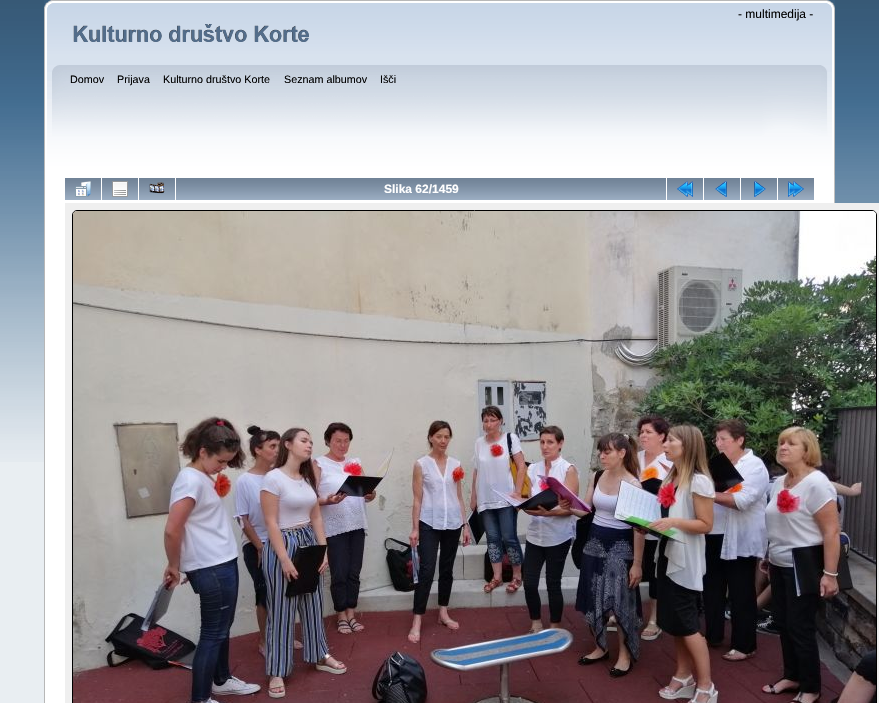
void draw(SkCanvas* canvas) {
    SkPaint paint;
    paint.setAntiAlias(true);
    canvas->clear(0xFFE9EEF2);
    canvas->drawImageRect(SkImages::DeferredFromEncodedData(SkData::MakeFromFileName("img1.png")), SkRect::MakeXYWH(0, 0, 879, 462), SkSamplingOptions());
    canvas->drawImageRect(SkImages::DeferredFromEncodedData(SkData::MakeFromFileName("img2.png")), SkRect::MakeXYWH(44, 0, 783, 65), SkSamplingOptions());
    canvas->drawImageRect(SkImages::DeferredFromEncodedData(SkData::MakeFromFileName("img3.png")), SkRect::MakeXYWH(827, 0, 8, 65), SkSamplingOptions());
    SkFont font1(fontMgr->matchFamilyStyle("Liberation Sans", SkFontStyle::Normal()), 12);
    font1.setSubpixel(true);
    paint.setColor(0xFF000000);
    canvas->drawString("- multimedija -", 738, 18, font1, paint);
    canvas->drawImageRect(SkImages::DeferredFromEncodedData(SkData::MakeFromFileName("img4.png")), SkRect::MakeXYWH(73, 24, 236, 18), SkSamplingOptions());
    canvas->drawImageRect(SkImages::DeferredFromEncodedData(SkData::MakeFromFileName("img5.png")), SkRect::MakeXYWH(44, 65, 777, 110), SkSamplingOptions());
    canvas->drawImageRect(SkImages::DeferredFromEncodedData(SkData::MakeFromFileName("img6.png")), SkRect::MakeXYWH(821, 65, 14, 110), SkSamplingOptions());
    SkFont font2(fontMgr->matchFamilyStyle("Liberation Sans", SkFontStyle::Normal()), 10.75f);
    font2.setSubpixel(true);
    canvas->drawString("Domov", 70, 83, font2, paint);
    canvas->drawString("Prijava", 117, 83, font2, paint);
    canvas->drawString("Kulturno društvo Korte", 163, 83, font2, paint);
    canvas->drawString("Seznam albumov", 284, 83, font2, paint);
    canvas->drawString("Išči", 380, 83, font2, paint);
    paint.setColor(0xFFFFFFFF);
    canvas->drawRect(SkRect::MakeXYWH(45, 175, 789, 528), paint);
    paint.setColor(0xFFB7B7B7);
    canvas->drawRect(SkRect::MakeXYWH(44, 175, 1, 528), paint);
    paint.setColor(0xFFC0C0C0);
    canvas->drawRect(SkRect::MakeXYWH(834, 175, 1, 28), paint);
    canvas->drawImageRect(SkImages::DeferredFromEncodedData(SkData::MakeFromFileName("img7.png")), SkRect::MakeXYWH(65, 178, 36, 22), SkSamplingOptions());
    canvas->drawImageRect(SkImages::DeferredFromEncodedData(SkData::MakeFromFileName("img8.png")), SkRect::MakeXYWH(75, 181, 16, 16), SkSamplingOptions());
    canvas->drawImageRect(SkImages::DeferredFromEncodedData(SkData::MakeFromFileName("img7.png")), SkRect::MakeXYWH(102, 178, 36, 22), SkSamplingOptions());
    canvas->drawImageRect(SkImages::DeferredFromEncodedData(SkData::MakeFromFileName("img9.png")), SkRect::MakeXYWH(112, 181, 16, 16), SkSamplingOptions());
    canvas->drawImageRect(SkImages::DeferredFromEncodedData(SkData::MakeFromFileName("img7.png")), SkRect::MakeXYWH(139, 178, 36, 22), SkSamplingOptions());
    canvas->drawImageRect(SkImages::DeferredFromEncodedData(SkData::MakeFromFileName("img10.png")), SkRect::MakeXYWH(149, 182, 16, 12), SkSamplingOptions());
    canvas->drawImageRect(SkImages::DeferredFromEncodedData(SkData::MakeFromFileName("img11.png")), SkRect::MakeXYWH(176, 178, 490, 22), SkSamplingOptions());
    SkFont font3(fontMgr->matchFamilyStyle("Liberation Sans", SkFontStyle::Bold()), 12);
    font3.setSubpixel(true);
    paint.setColor(0xFFFFFFFF);
    canvas->drawString("Slika 62/1459", 384, 193, font3, paint);
    canvas->drawImageRect(SkImages::DeferredFromEncodedData(SkData::MakeFromFileName("img7.png")), SkRect::MakeXYWH(667, 178, 36, 22), SkSamplingOptions());
    canvas->drawImageRect(SkImages::DeferredFromEncodedData(SkData::MakeFromFileName("img12.png")), SkRect::MakeXYWH(677, 181, 16, 16), SkSamplingOptions());
    canvas->drawImageRect(SkImages::DeferredFromEncodedData(SkData::MakeFromFileName("img7.png")), SkRect::MakeXYWH(704, 178, 36, 22), SkSamplingOptions());
    canvas->drawImageRect(SkImages::DeferredFromEncodedData(SkData::MakeFromFileName("img13.png")), SkRect::MakeXYWH(715, 181, 12, 16), SkSamplingOptions());
    canvas->drawImageRect(SkImages::DeferredFromEncodedData(SkData::MakeFromFileName("img7.png")), SkRect::MakeXYWH(741, 178, 36, 22), SkSamplingOptions());
    canvas->drawImageRect(SkImages::DeferredFromEncodedData(SkData::MakeFromFileName("img14.png")), SkRect::MakeXYWH(754, 181, 12, 16), SkSamplingOptions());
    canvas->drawImageRect(SkImages::DeferredFromEncodedData(SkData::MakeFromFileName("img7.png")), SkRect::MakeXYWH(778, 178, 36, 22), SkSamplingOptions());
    canvas->drawImageRect(SkImages::DeferredFromEncodedData(SkData::MakeFromFileName("img15.png")), SkRect::MakeXYWH(788, 181, 16, 16), SkSamplingOptions());
    paint.setColor(0xFFEFEFEF);
    canvas->drawRect(SkRect::MakeXYWH(65, 203, 814, 500), paint);
    paint.setStyle(SkPaint::kStroke_Style);
    paint.setStrokeWidth(1);
    paint.setColor(0xFF000000);
    canvas->drawRoundRect(SkRect::MakeXYWH(72.5f, 210.5f, 804, 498), 4.5f, 4.5f, paint);
    canvas->drawImageRect(SkImages::DeferredFromEncodedData(SkData::MakeFromFileName("img16.png")), SkRect::MakeXYWH(73, 211, 803, 492), SkSamplingOptions());
}
